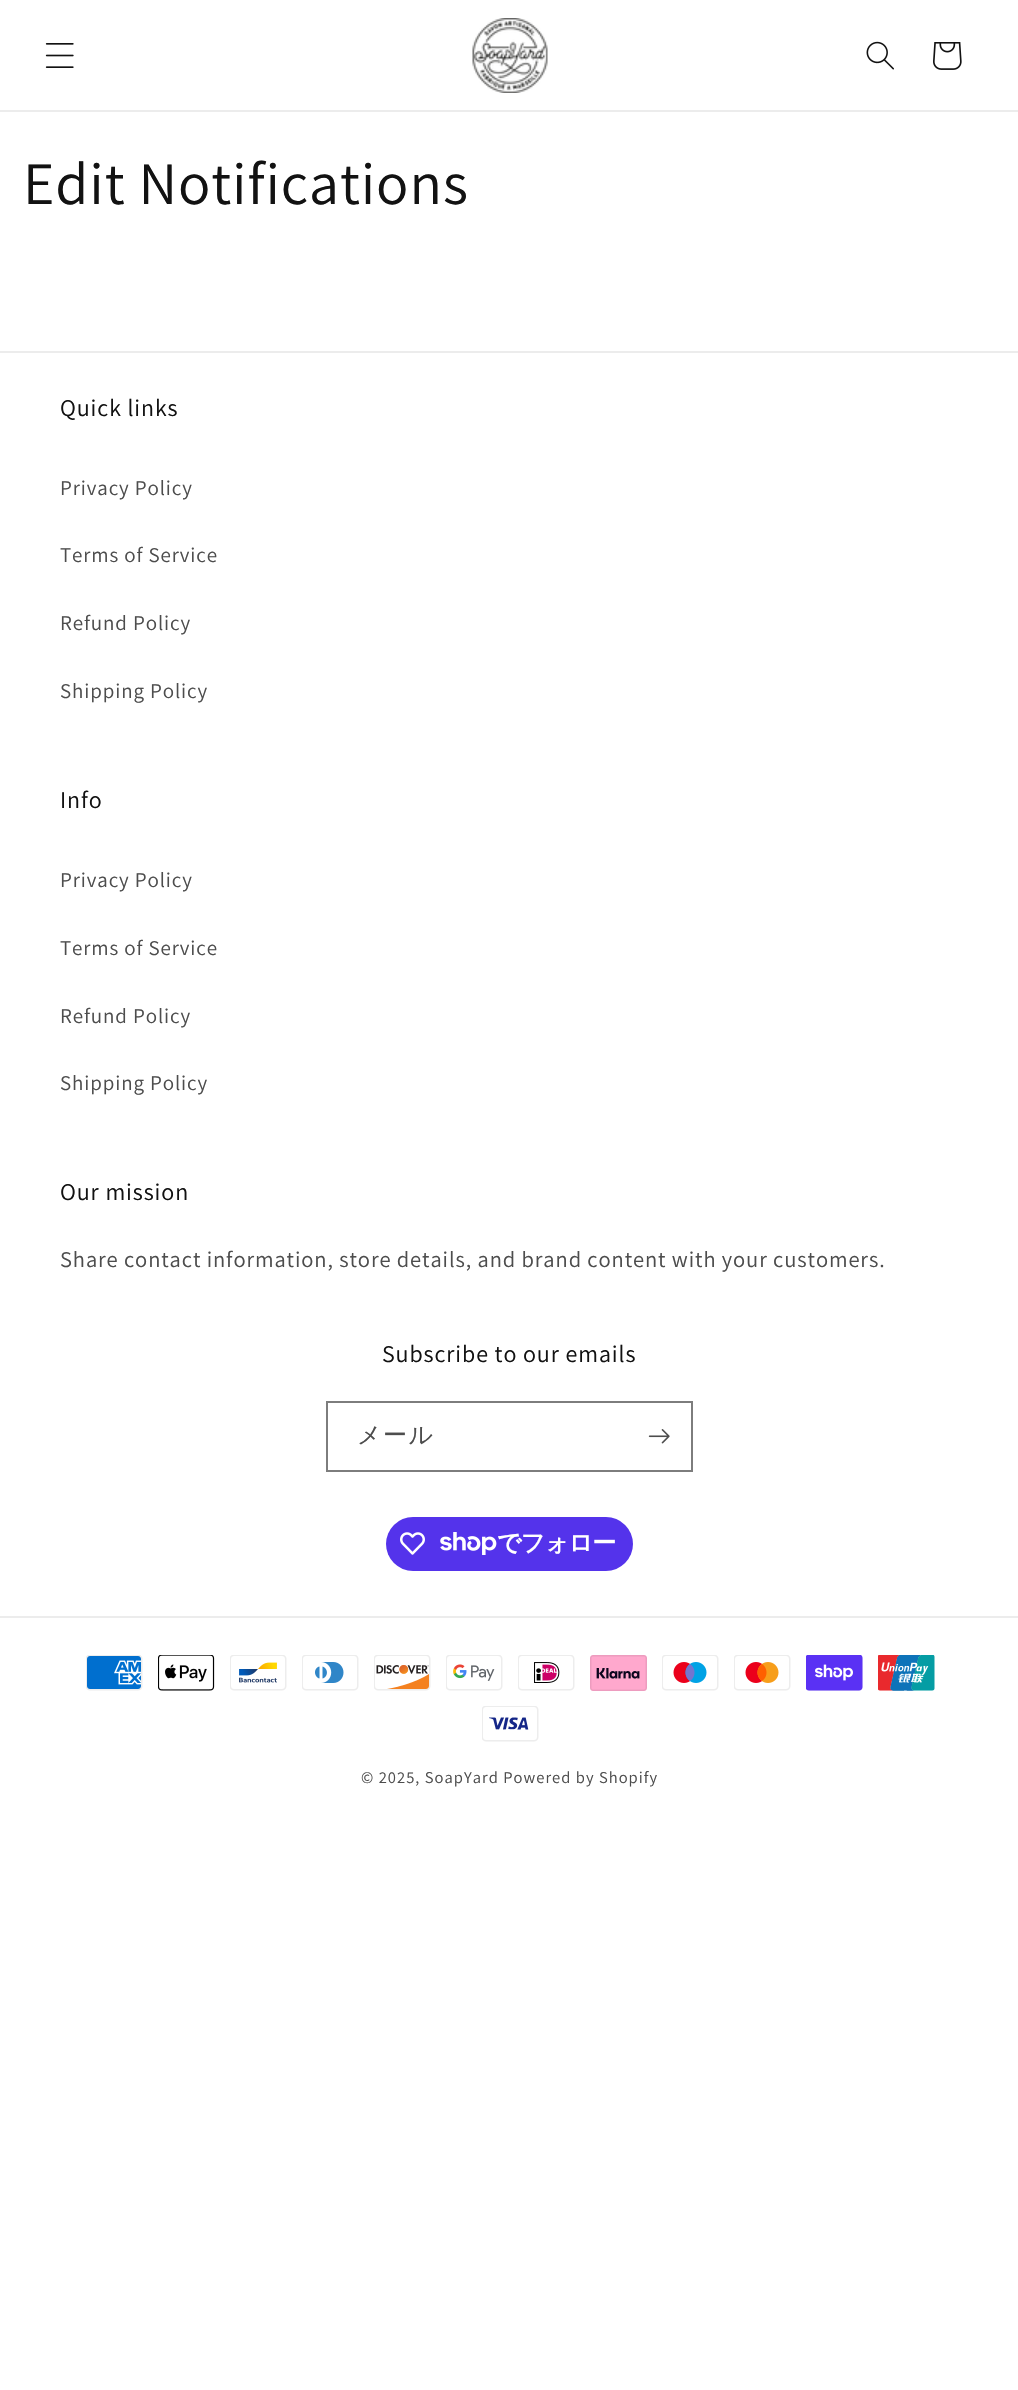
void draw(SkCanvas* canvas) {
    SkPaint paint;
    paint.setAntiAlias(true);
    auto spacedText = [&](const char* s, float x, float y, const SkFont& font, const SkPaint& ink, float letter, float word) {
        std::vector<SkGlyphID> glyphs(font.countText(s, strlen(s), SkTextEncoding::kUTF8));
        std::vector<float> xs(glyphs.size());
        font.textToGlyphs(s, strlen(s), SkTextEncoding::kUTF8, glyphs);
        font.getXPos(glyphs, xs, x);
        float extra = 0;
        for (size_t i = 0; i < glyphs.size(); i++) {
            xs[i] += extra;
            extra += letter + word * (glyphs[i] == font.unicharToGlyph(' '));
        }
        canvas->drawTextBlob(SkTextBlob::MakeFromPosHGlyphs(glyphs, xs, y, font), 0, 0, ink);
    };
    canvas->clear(0xFFFFFFFF);
    paint.setColor(0xFFECECEC);
    canvas->drawRect(SkRect::MakeXYWH(0, 110, 1018, 2), paint);
    canvas->drawImageRect(SkImages::DeferredFromEncodedData(SkData::MakeFromFileName("img1.png")), SkRect::MakeXYWH(45, 43, 29, 25), SkSamplingOptions());
    canvas->drawImageRect(SkImages::DeferredFromEncodedData(SkData::MakeFromFileName("img2.png")), SkRect::MakeXYWH(472, 18, 76, 75), SkSamplingOptions());
    canvas->drawImageRect(SkImages::DeferredFromEncodedData(SkData::MakeFromFileName("img3.png")), SkRect::MakeXYWH(866, 41, 28, 29), SkSamplingOptions());
    canvas->drawImageRect(SkImages::DeferredFromEncodedData(SkData::MakeFromFileName("img4.png")), SkRect::MakeXYWH(933, 42, 29, 28), SkSamplingOptions());
    SkFont font1(fontMgr->matchFamilyStyle("Assistant", SkFontStyle::Normal()), 60);
    font1.setSubpixel(true);
    paint.setColor(0xFF121212);
    spacedText("Edit Notifications", 23, 204, font1, paint, 0.9f, 0);
    paint.setColor(0xFFECECEC);
    canvas->drawRect(SkRect::MakeXYWH(0, 351, 1018, 2), paint);
    SkFont font2(fontMgr->matchFamilyStyle("Assistant", SkFontStyle::Normal()), 24);
    font2.setSubpixel(true);
    paint.setColor(0xFF121212);
    spacedText("Quick links", 60, 416, font2, paint, 0.9f, 0);
    SkFont font3(fontMgr->matchFamilyStyle("Assistant", SkFontStyle::Normal()), 21);
    font3.setSubpixel(true);
    paint.setColor(0xFF4D4D4D);
    spacedText("Privacy Policy", 60, 495, font3, paint, 0.9f, 0);
    spacedText("Terms of Service", 60, 562, font3, paint, 0.9f, 0);
    spacedText("Refund Policy", 60, 630, font3, paint, 0.9f, 0);
    spacedText("Shipping Policy", 60, 698, font3, paint, 0.9f, 0);
    paint.setColor(0xFF121212);
    spacedText("Info", 60, 808, font2, paint, 0.9f, 0);
    paint.setColor(0xFF4D4D4D);
    spacedText("Privacy Policy", 60, 887, font3, paint, 0.9f, 0);
    spacedText("Terms of Service", 60, 955, font3, paint, 0.9f, 0);
    spacedText("Refund Policy", 60, 1023, font3, paint, 0.9f, 0);
    spacedText("Shipping Policy", 60, 1090, font3, paint, 0.9f, 0);
    paint.setColor(0xFF121212);
    spacedText("Our mission", 60, 1200, font2, paint, 0.9f, 0);
    SkFont font4(fontMgr->matchFamilyStyle("Assistant", SkFontStyle::Normal()), 22.5f);
    font4.setSubpixel(true);
    paint.setColor(0xFF4D4D4D);
    spacedText("Share contact information, store details, and brand content with your customers.", 60, 1267, font4, paint, 0.9f, 0);
    paint.setColor(0xFF121212);
    spacedText("Subscribe to our emails", 382, 1362, font2, paint, 0.9f, 0);
    paint.setStyle(SkPaint::kStroke_Style);
    paint.setStrokeWidth(2);
    paint.setColor(0xFF7D7D7D);
    canvas->drawRect(SkRect::MakeXYWH(327, 1402, 365, 69), paint);
    SkFont font5(fontMgr->matchFamilyStyle("WenQuanYi Zen Hei", SkFontStyle(500, SkFontStyle::kNormal_Width, SkFontStyle::kUpright_Slant)), 24);
    font5.setSubpixel(true);
    paint.setStyle(SkPaint::kFill_Style);
    paint.setColor(0xFF4D4D4D);
    spacedText("メール", 357, 1443, font5, paint, 1.5f, 0);
    canvas->drawImageRect(SkImages::DeferredFromEncodedData(SkData::MakeFromFileName("img5.png")), SkRect::MakeXYWH(648, 1429, 22, 15), SkSamplingOptions());
    paint.setColor(0xFF5433EB);
    canvas->drawRoundRect(SkRect::MakeXYWH(386, 1517, 247, 54), 27, 27, paint);
    canvas->drawImageRect(SkImages::DeferredFromEncodedData(SkData::MakeFromFileName("img6.png")), SkRect::MakeXYWH(400, 1532, 25, 23), SkSamplingOptions());
    canvas->drawImageRect(SkImages::DeferredFromEncodedData(SkData::MakeFromFileName("img7.png")), SkRect::MakeXYWH(440, 1532, 57, 23), SkSamplingOptions());
    SkFont font6(fontMgr->matchFamilyStyle("WenQuanYi Zen Hei", SkFontStyle::Bold()), 24);
    font6.setSubpixel(true);
    paint.setColor(0xFFFFFFFF);
    spacedText("でフォロー", 497, 1551, font6, paint, -0.75f, 0);
    paint.setColor(0xFFECECEC);
    canvas->drawRect(SkRect::MakeXYWH(0, 1616, 1018, 2), paint);
    canvas->drawImageRect(SkImages::DeferredFromEncodedData(SkData::MakeFromFileName("img8.png")), SkRect::MakeXYWH(86, 1655, 57, 36), SkSamplingOptions());
    canvas->drawImageRect(SkImages::DeferredFromEncodedData(SkData::MakeFromFileName("img9.png")), SkRect::MakeXYWH(158, 1655, 57, 36), SkSamplingOptions());
    canvas->drawImageRect(SkImages::DeferredFromEncodedData(SkData::MakeFromFileName("img10.png")), SkRect::MakeXYWH(230, 1655, 57, 36), SkSamplingOptions());
    canvas->drawImageRect(SkImages::DeferredFromEncodedData(SkData::MakeFromFileName("img11.png")), SkRect::MakeXYWH(302, 1655, 57, 36), SkSamplingOptions());
    canvas->drawImageRect(SkImages::DeferredFromEncodedData(SkData::MakeFromFileName("img12.png")), SkRect::MakeXYWH(374, 1655, 57, 36), SkSamplingOptions());
    canvas->drawImageRect(SkImages::DeferredFromEncodedData(SkData::MakeFromFileName("img13.png")), SkRect::MakeXYWH(446, 1655, 57, 36), SkSamplingOptions());
    canvas->drawImageRect(SkImages::DeferredFromEncodedData(SkData::MakeFromFileName("img14.png")), SkRect::MakeXYWH(518, 1655, 57, 36), SkSamplingOptions());
    canvas->drawImageRect(SkImages::DeferredFromEncodedData(SkData::MakeFromFileName("img15.png")), SkRect::MakeXYWH(590, 1655, 57, 36), SkSamplingOptions());
    canvas->drawImageRect(SkImages::DeferredFromEncodedData(SkData::MakeFromFileName("img16.png")), SkRect::MakeXYWH(662, 1655, 57, 36), SkSamplingOptions());
    canvas->drawImageRect(SkImages::DeferredFromEncodedData(SkData::MakeFromFileName("img17.png")), SkRect::MakeXYWH(734, 1655, 57, 36), SkSamplingOptions());
    canvas->drawImageRect(SkImages::DeferredFromEncodedData(SkData::MakeFromFileName("img18.png")), SkRect::MakeXYWH(806, 1655, 57, 36), SkSamplingOptions());
    canvas->drawImageRect(SkImages::DeferredFromEncodedData(SkData::MakeFromFileName("img19.png")), SkRect::MakeXYWH(878, 1655, 57, 36), SkSamplingOptions());
    canvas->drawImageRect(SkImages::DeferredFromEncodedData(SkData::MakeFromFileName("img20.png")), SkRect::MakeXYWH(482, 1706, 57, 36), SkSamplingOptions());
    SkFont font7(fontMgr->matchFamilyStyle("Assistant", SkFontStyle::Normal()), 16.5f);
    font7.setSubpixel(true);
    paint.setColor(0xFF4D4D4D);
    spacedText("© 2025, SoapYard Powered by Shopify", 361, 1783, font7, paint, 1.05f, 0);
}
